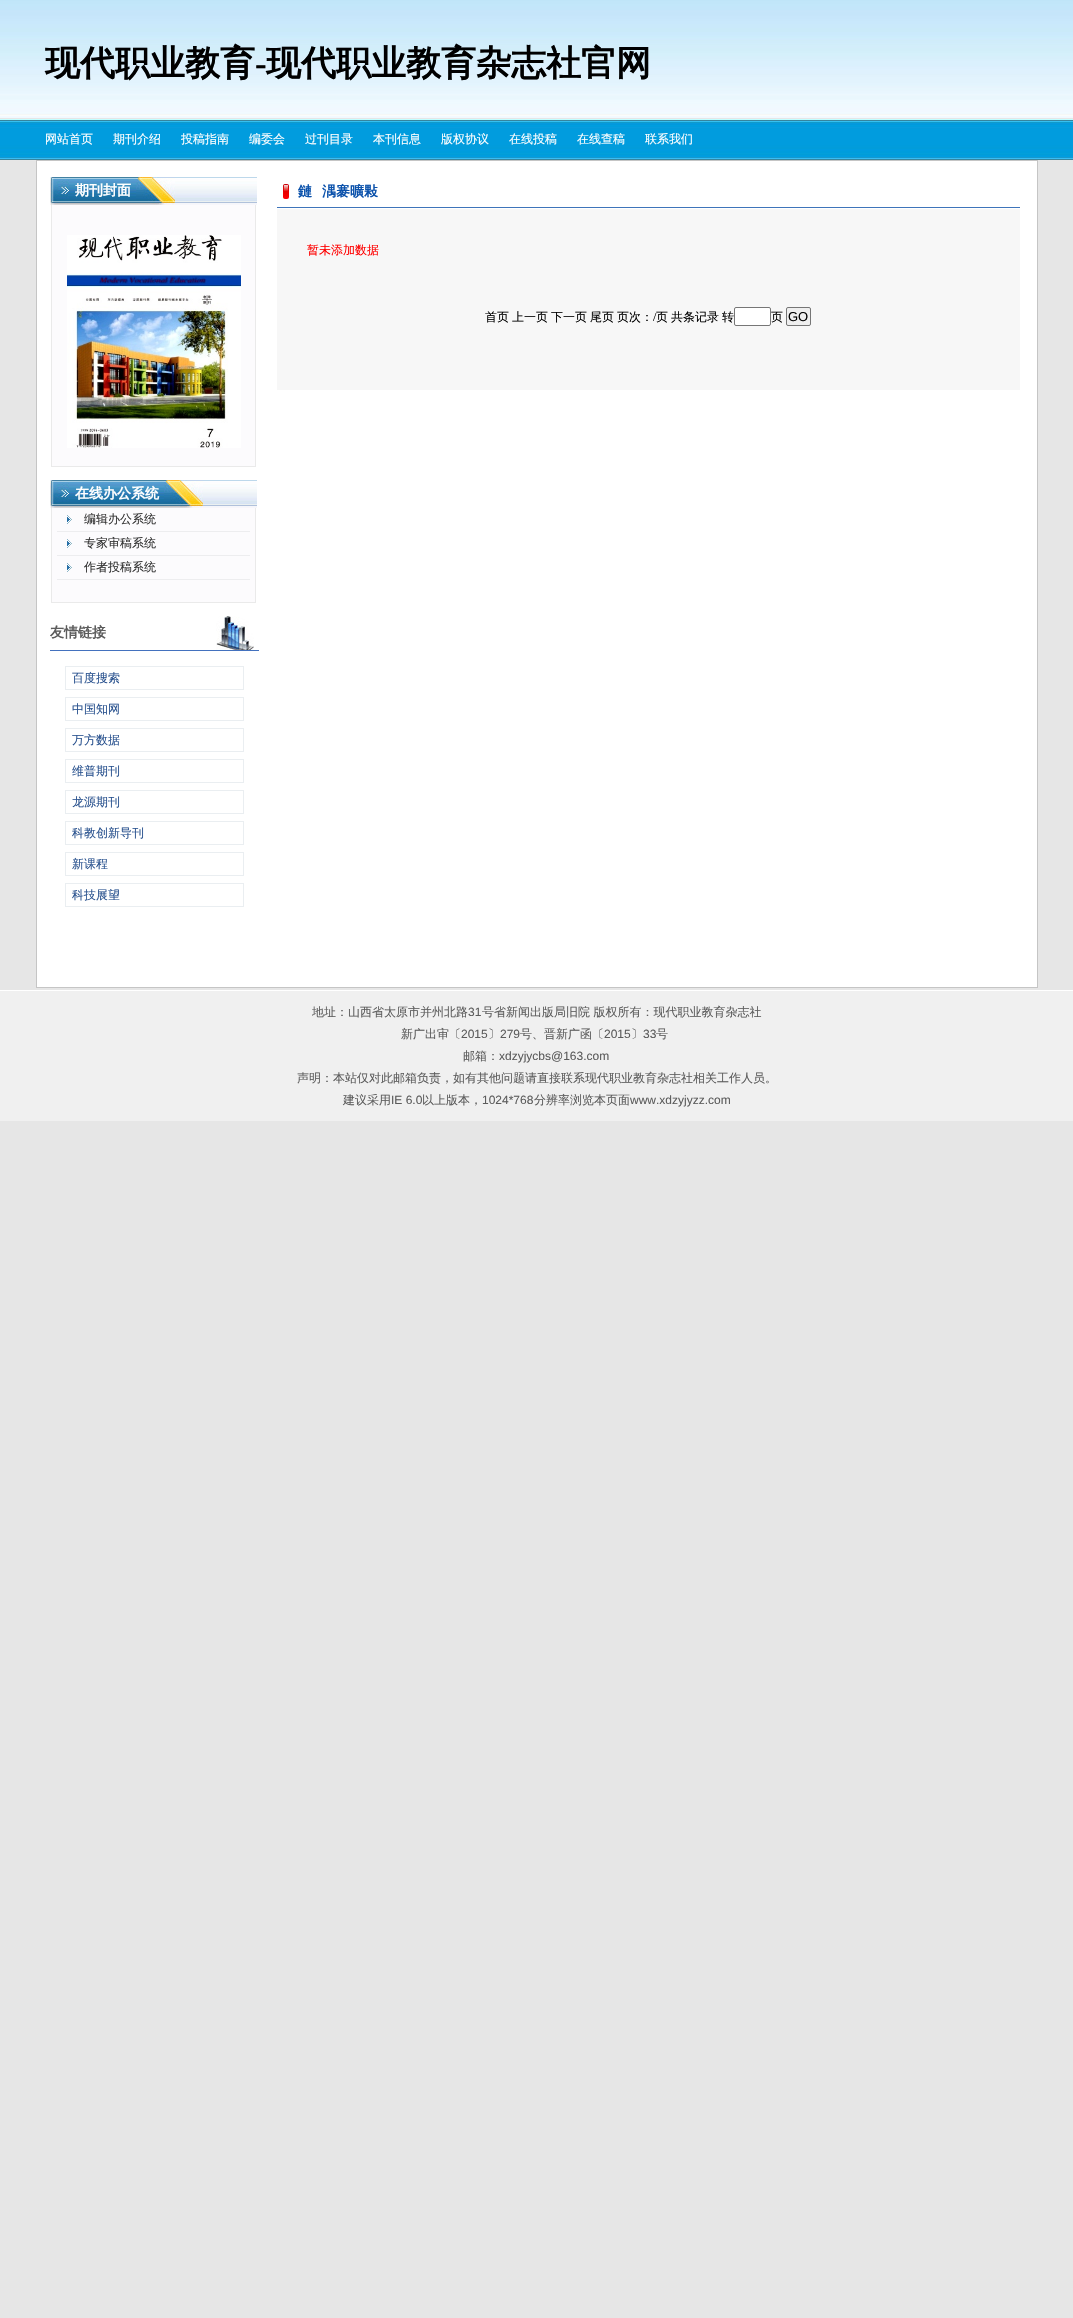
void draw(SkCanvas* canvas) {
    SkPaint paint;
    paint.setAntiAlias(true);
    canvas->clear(0xFFE6E6E6);
    canvas->drawImageRect(SkImages::DeferredFromEncodedData(SkData::MakeFromFileName("img1.png")), SkRect::MakeXYWH(0, 0, 1073, 118), SkSamplingOptions());
    SkFont font1(fontMgr->matchFamilyStyle("WenQuanYi Zen Hei", SkFontStyle::Bold()), 35);
    font1.setSubpixel(true);
    paint.setColor(0xFF000000);
    canvas->drawString("现代职业教育", 45, 75, font1, paint);
    SkFont font2(fontMgr->matchFamilyStyle("Liberation Serif", SkFontStyle::Bold()), 35);
    font2.setSubpixel(true);
    canvas->drawString("-", 255, 75, font2, paint);
    canvas->drawString("现代职业教育杂志社官网", 266, 75, font1, paint);
    canvas->drawImageRect(SkImages::DeferredFromEncodedData(SkData::MakeFromFileName("img2.png")), SkRect::MakeXYWH(0, 119, 1073, 41), SkSamplingOptions());
    SkFont font3(fontMgr->matchFamilyStyle("WenQuanYi Zen Hei", SkFontStyle(500, SkFontStyle::kNormal_Width, SkFontStyle::kUpright_Slant)), 12);
    font3.setSubpixel(true);
    paint.setColor(0xFFFFFFFF);
    canvas->drawString("网站首页", 45, 143, font3, paint);
    canvas->drawString("期刊介绍", 113, 143, font3, paint);
    canvas->drawString("投稿指南", 181, 143, font3, paint);
    canvas->drawString("编委会", 249, 143, font3, paint);
    canvas->drawString("过刊目录", 305, 143, font3, paint);
    canvas->drawString("本刊信息", 373, 143, font3, paint);
    canvas->drawString("版权协议", 441, 143, font3, paint);
    canvas->drawString("在线投稿", 509, 143, font3, paint);
    canvas->drawString("在线查稿", 577, 143, font3, paint);
    canvas->drawString("联系我们", 645, 143, font3, paint);
    canvas->drawRect(SkRect::MakeXYWH(36.5f, 160.5f, 1001, 827), paint);
    paint.setStyle(SkPaint::kStroke_Style);
    paint.setStrokeWidth(1);
    paint.setColor(0xFFC5C5C5);
    canvas->drawRect(SkRect::MakeXYWH(36.5f, 160.5f, 1001, 827), paint);
    canvas->drawImageRect(SkImages::DeferredFromEncodedData(SkData::MakeFromFileName("img3.png")), SkRect::MakeXYWH(175, 177, 82, 28), SkSamplingOptions());
    canvas->drawImageRect(SkImages::DeferredFromEncodedData(SkData::MakeFromFileName("img4.png")), SkRect::MakeXYWH(69, 177, 67, 28), SkSamplingOptions());
    canvas->drawImageRect(SkImages::DeferredFromEncodedData(SkData::MakeFromFileName("img5.png")), SkRect::MakeXYWH(50, 177, 19, 28), SkSamplingOptions());
    SkFont font4(fontMgr->matchFamilyStyle("WenQuanYi Zen Hei", SkFontStyle::Bold()), 14);
    font4.setSubpixel(true);
    paint.setStyle(SkPaint::kFill_Style);
    paint.setColor(0xFFFFFFFF);
    canvas->drawString("期刊封面", 75, 195, font4, paint);
    canvas->drawImageRect(SkImages::DeferredFromEncodedData(SkData::MakeFromFileName("img6.png")), SkRect::MakeXYWH(136, 177, 39, 28), SkSamplingOptions());
    paint.setColor(0xFFFCFBFD);
    canvas->drawRect(SkRect::MakeXYWH(52, 205, 203, 261), paint);
    paint.setColor(0xFFEAEAEA);
    canvas->drawRect(SkRect::MakeXYWH(255, 205, 1, 262), paint);
    canvas->drawRect(SkRect::MakeXYWH(51, 466, 205, 1), paint);
    canvas->drawRect(SkRect::MakeXYWH(51, 205, 1, 262), paint);
    canvas->drawImageRect(SkImages::DeferredFromEncodedData(SkData::MakeFromFileName("img7.png")), SkRect::MakeXYWH(67, 235, 174, 213), SkSamplingOptions());
    canvas->drawImageRect(SkImages::DeferredFromEncodedData(SkData::MakeFromFileName("img8.png")), SkRect::MakeXYWH(203, 480, 54, 28), SkSamplingOptions());
    canvas->drawImageRect(SkImages::DeferredFromEncodedData(SkData::MakeFromFileName("img9.png")), SkRect::MakeXYWH(69, 480, 95, 28), SkSamplingOptions());
    canvas->drawImageRect(SkImages::DeferredFromEncodedData(SkData::MakeFromFileName("img5.png")), SkRect::MakeXYWH(50, 480, 19, 28), SkSamplingOptions());
    paint.setColor(0xFFFFFFFF);
    canvas->drawString("在线办公系统", 75, 498, font4, paint);
    canvas->drawImageRect(SkImages::DeferredFromEncodedData(SkData::MakeFromFileName("img6.png")), SkRect::MakeXYWH(164, 480, 39, 28), SkSamplingOptions());
    paint.setColor(0xFFFCFBFD);
    canvas->drawRect(SkRect::MakeXYWH(52, 508, 203, 94), paint);
    paint.setColor(0xFFEAEAEA);
    canvas->drawRect(SkRect::MakeXYWH(255, 508, 1, 95), paint);
    canvas->drawRect(SkRect::MakeXYWH(51, 602, 205, 1), paint);
    canvas->drawRect(SkRect::MakeXYWH(51, 508, 1, 95), paint);
    paint.setColor(0xFFEDEDEF);
    canvas->drawRect(SkRect::MakeXYWH(57, 531, 193, 1), paint);
    canvas->drawImageRect(SkImages::DeferredFromEncodedData(SkData::MakeFromFileName("img10.png")), SkRect::MakeXYWH(67, 515, 5, 9), SkSamplingOptions());
    paint.setColor(0xFF333333);
    canvas->drawString("编辑办公系统", 84, 523, font3, paint);
    paint.setColor(0xFFEDEDEF);
    canvas->drawRect(SkRect::MakeXYWH(57, 555, 193, 1), paint);
    canvas->drawImageRect(SkImages::DeferredFromEncodedData(SkData::MakeFromFileName("img10.png")), SkRect::MakeXYWH(67, 539, 5, 9), SkSamplingOptions());
    paint.setColor(0xFF333333);
    canvas->drawString("专家审稿系统", 84, 547, font3, paint);
    paint.setColor(0xFFEDEDEF);
    canvas->drawRect(SkRect::MakeXYWH(57, 579, 193, 1), paint);
    canvas->drawImageRect(SkImages::DeferredFromEncodedData(SkData::MakeFromFileName("img10.png")), SkRect::MakeXYWH(67, 563, 5, 9), SkSamplingOptions());
    paint.setColor(0xFF333333);
    canvas->drawString("作者投稿系统", 84, 571, font3, paint);
    paint.setColor(0xFF4371BE);
    canvas->drawRect(SkRect::MakeXYWH(50, 650, 209, 1), paint);
    canvas->drawImageRect(SkImages::DeferredFromEncodedData(SkData::MakeFromFileName("img11.png")), SkRect::MakeXYWH(216, 616, 38, 34), SkSamplingOptions());
    paint.setColor(0xFF5C5C5C);
    canvas->drawString("友情链接", 50, 637, font4, paint);
    paint.setStyle(SkPaint::kStroke_Style);
    paint.setColor(0xFFEAEEF1);
    canvas->drawRect(SkRect::MakeXYWH(65.5f, 666.5f, 178, 23), paint);
    paint.setStyle(SkPaint::kFill_Style);
    paint.setColor(0xFF28518E);
    canvas->drawString("百度搜索", 72, 682, font3, paint);
    paint.setStyle(SkPaint::kStroke_Style);
    paint.setColor(0xFFEAEEF1);
    canvas->drawRect(SkRect::MakeXYWH(65.5f, 697.5f, 178, 23), paint);
    paint.setStyle(SkPaint::kFill_Style);
    paint.setColor(0xFF28518E);
    canvas->drawString("中国知网", 72, 713, font3, paint);
    paint.setStyle(SkPaint::kStroke_Style);
    paint.setColor(0xFFEAEEF1);
    canvas->drawRect(SkRect::MakeXYWH(65.5f, 728.5f, 178, 23), paint);
    paint.setStyle(SkPaint::kFill_Style);
    paint.setColor(0xFF28518E);
    canvas->drawString("万方数据", 72, 744, font3, paint);
    paint.setStyle(SkPaint::kStroke_Style);
    paint.setColor(0xFFEAEEF1);
    canvas->drawRect(SkRect::MakeXYWH(65.5f, 759.5f, 178, 23), paint);
    paint.setStyle(SkPaint::kFill_Style);
    paint.setColor(0xFF28518E);
    canvas->drawString("维普期刊", 72, 775, font3, paint);
    paint.setStyle(SkPaint::kStroke_Style);
    paint.setColor(0xFFEAEEF1);
    canvas->drawRect(SkRect::MakeXYWH(65.5f, 790.5f, 178, 23), paint);
    paint.setStyle(SkPaint::kFill_Style);
    paint.setColor(0xFF28518E);
    canvas->drawString("龙源期刊", 72, 806, font3, paint);
    paint.setStyle(SkPaint::kStroke_Style);
    paint.setColor(0xFFEAEEF1);
    canvas->drawRect(SkRect::MakeXYWH(65.5f, 821.5f, 178, 23), paint);
    paint.setStyle(SkPaint::kFill_Style);
    paint.setColor(0xFF28518E);
    canvas->drawString("科教创新导刊", 72, 837, font3, paint);
    paint.setStyle(SkPaint::kStroke_Style);
    paint.setColor(0xFFEAEEF1);
    canvas->drawRect(SkRect::MakeXYWH(65.5f, 852.5f, 178, 23), paint);
    paint.setStyle(SkPaint::kFill_Style);
    paint.setColor(0xFF28518E);
    canvas->drawString("新课程", 72, 868, font3, paint);
    paint.setStyle(SkPaint::kStroke_Style);
    paint.setColor(0xFFEAEEF1);
    canvas->drawRect(SkRect::MakeXYWH(65.5f, 883.5f, 178, 23), paint);
    paint.setStyle(SkPaint::kFill_Style);
    paint.setColor(0xFF28518E);
    canvas->drawString("科技展望", 72, 899, font3, paint);
    paint.setColor(0xFF3E74BA);
    canvas->drawRect(SkRect::MakeXYWH(277, 207, 743, 1), paint);
    canvas->drawImageRect(SkImages::DeferredFromEncodedData(SkData::MakeFromFileName("img12.png")), SkRect::MakeXYWH(283, 184, 6, 15), SkSamplingOptions());
    paint.setColor(0xFF0A51AB);
    canvas->drawString("鏈", 298, 196, font4, paint);
    canvas->drawString("湡褰曠敤", 322, 196, font4, paint);
    paint.setColor(0xFFF7F7F7);
    canvas->drawRect(SkRect::MakeXYWH(277, 209, 743, 181), paint);
    paint.setColor(0xFFFF0000);
    canvas->drawString("暂未添加数据", 307, 254, font3, paint);
    paint.setColor(0xFF000000);
    canvas->drawString("首页", 485, 321, font3, paint);
    canvas->drawString("上一页", 512, 321, font3, paint);
    canvas->drawString("下一页", 551, 321, font3, paint);
    canvas->drawString("尾页", 590, 321, font3, paint);
    canvas->drawString("页次：", 617, 321, font3, paint);
    SkFont font5(fontMgr->matchFamilyStyle("Liberation Serif", SkFontStyle::Normal()), 12);
    font5.setSubpixel(true);
    canvas->drawString("/", 653, 321, font5, paint);
    canvas->drawString("页", 656, 321, font3, paint);
    canvas->drawString("共条记录", 671, 321, font3, paint);
    canvas->drawString("转", 722, 321, font3, paint);
    paint.setColor(0xFFFFFFFF);
    canvas->drawRoundRect(SkRect::MakeXYWH(734.5f, 307.5f, 36, 18), 1.5f, 1.5f, paint);
    paint.setStyle(SkPaint::kStroke_Style);
    paint.setColor(0xFF767676);
    canvas->drawRoundRect(SkRect::MakeXYWH(734.5f, 307.5f, 36, 18), 1.5f, 1.5f, paint);
    paint.setStyle(SkPaint::kFill_Style);
    paint.setColor(0xFF000000);
    canvas->drawString("页", 771, 321, font3, paint);
    paint.setColor(0xFFEFEFEF);
    canvas->drawRoundRect(SkRect::MakeXYWH(786.5f, 307.5f, 24, 18), 1.5f, 1.5f, paint);
    paint.setStyle(SkPaint::kStroke_Style);
    paint.setColor(0xFF767676);
    canvas->drawRoundRect(SkRect::MakeXYWH(786.5f, 307.5f, 24, 18), 1.5f, 1.5f, paint);
    SkFont font6(fontMgr->matchFamilyStyle("Liberation Sans", SkFontStyle::Normal()), 13);
    font6.setSubpixel(true);
    paint.setStyle(SkPaint::kFill_Style);
    paint.setColor(0xFF000000);
    canvas->drawString("GO", 788, 321, font6, paint);
    paint.setColor(0xFFF0F0F0);
    canvas->drawRect(SkRect::MakeXYWH(0, 991, 1073, 130), paint);
    paint.setColor(0xFFFFFFFF);
    canvas->drawRect(SkRect::MakeXYWH(0, 990, 1073, 1), paint);
    paint.setColor(0xFF5C5C5C);
    canvas->drawString("地址：山西省太原市并州北路", 312, 1016, font3, paint);
    SkFont font7(fontMgr->matchFamilyStyle("Liberation Sans", SkFontStyle::Normal()), 12);
    font7.setSubpixel(true);
    canvas->drawString("31", 468, 1016, font7, paint);
    canvas->drawString("号省新闻出版局旧院 版权所有：现代职业教育杂志社", 482, 1016, font3, paint);
    canvas->drawString("新广出审〔", 401, 1038, font3, paint);
    canvas->drawString("2015", 461, 1038, font7, paint);
    canvas->drawString("〕", 488, 1038, font3, paint);
    canvas->drawString("279", 500, 1038, font7, paint);
    canvas->drawString("号、晋新广函〔", 520, 1038, font3, paint);
    canvas->drawString("2015", 604, 1038, font7, paint);
    canvas->drawString("〕", 631, 1038, font3, paint);
    canvas->drawString("33", 643, 1038, font7, paint);
    canvas->drawString("号", 656, 1038, font3, paint);
    canvas->drawString("邮箱：", 463, 1060, font3, paint);
    canvas->drawString("xdzyjycbs@163.com", 499, 1060, font7, paint);
    canvas->drawString("声明：本站仅对此邮箱负责，如有其他问题请直接联系现代职业教育杂志社相关工作人员。", 297, 1082, font3, paint);
    canvas->drawString("建议采用", 343, 1104, font3, paint);
    canvas->drawString("IE 6.0", 391, 1104, font7, paint);
    canvas->drawString("以上版本，", 422, 1104, font3, paint);
    canvas->drawString("1024*768", 482, 1104, font7, paint);
    canvas->drawString("分辨率浏览本页面", 534, 1104, font3, paint);
    canvas->drawString("www.xdzyjyzz.com", 630, 1104, font7, paint);
}
